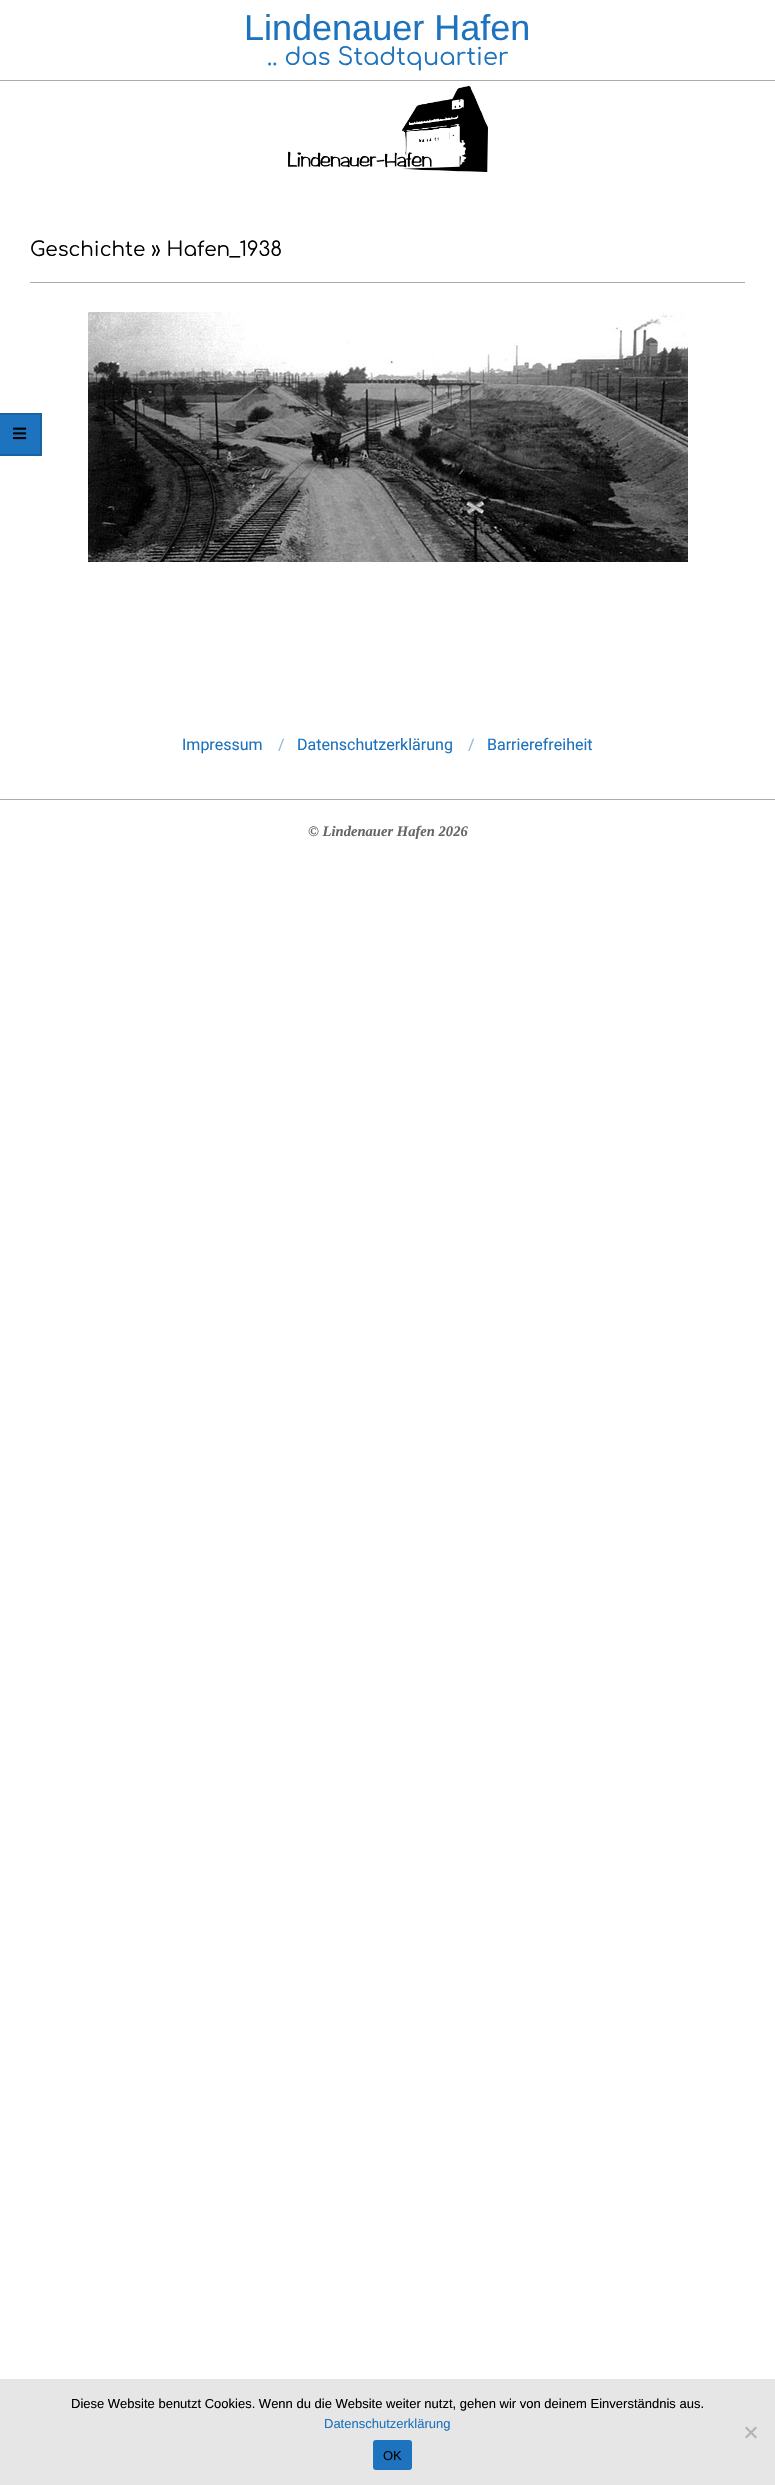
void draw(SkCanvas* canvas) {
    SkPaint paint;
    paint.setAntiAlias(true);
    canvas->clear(0xFFFFFFFF);
    paint.setColor(0xFFE6E6E6);
    canvas->drawRect(SkRect::MakeXYWH(0, 2379, 775, 106), paint);
    SkFont font1(fontMgr->matchFamilyStyle("Liberation Sans", SkFontStyle::Normal()), 36);
    font1.setSubpixel(true);
    paint.setColor(0xFF1E73BE);
    canvas->drawString("Lindenauer Hafen", 244, 40, font1, paint);
    SkFont font2(fontMgr->matchFamilyStyle("Comfortaa", SkFontStyle::Normal()), 24);
    font2.setSubpixel(true);
    canvas->drawString(".. das Stadtquartier", 267, 65, font2, paint);
    paint.setColor(0xFFABABAB);
    canvas->drawRect(SkRect::MakeXYWH(0, 80, 775, 1), paint);
    canvas->drawImageRect(SkImages::DeferredFromEncodedData(SkData::MakeFromFileName("img1.png")), SkRect::MakeXYWH(288, 86, 200, 86), SkSamplingOptions());
    paint.setColor(0xFF1E73BE);
    canvas->drawRect(SkRect::MakeXYWH(0, 413, 42, 43), paint);
    paint.setColor(0xFF1A63A3);
    canvas->drawPath(SkPathBuilder().moveTo(0, 413).lineTo(42, 413).lineTo(40, 415).lineTo(0, 415).close().detach(), paint);
    paint.setColor(0x24000000);
    canvas->drawPath(SkPathBuilder().moveTo(42, 413).lineTo(42, 456).lineTo(40, 454).lineTo(40, 415).close().detach(), paint);
    canvas->drawPath(SkPathBuilder().moveTo(42, 456).lineTo(0, 456).lineTo(0, 454).lineTo(40, 454).close().detach(), paint);
    canvas->drawImageRect(SkImages::DeferredFromEncodedData(SkData::MakeFromFileName("img2.png")), SkRect::MakeXYWH(13, 427, 14, 13), SkSamplingOptions());
    paint.setColor(0xFFABABAB);
    canvas->drawRect(SkRect::MakeXYWH(30, 282, 715, 1), paint);
    SkFont font3(fontMgr->matchFamilyStyle("Comfortaa", SkFontStyle::Normal()), 20);
    font3.setSubpixel(true);
    paint.setColor(0xFF000000);
    canvas->drawString("Geschichte » Hafen_1938", 30, 256, font3, paint);
    canvas->drawImageRect(SkImages::DeferredFromEncodedData(SkData::MakeFromFileName("img3.png")), SkRect::MakeXYWH(88, 312, 600, 250), SkSamplingOptions());
    SkFont font4(fontMgr->matchFamilyStyle("Roboto", SkFontStyle::Normal()), 16);
    font4.setSubpixel(true);
    paint.setColor(0xFF1E73BE);
    canvas->drawString("Impressum", 182, 750, font4, paint);
    paint.setColor(0xFF8FB9DF);
    canvas->drawString("/", 278, 750, font4, paint);
    paint.setColor(0xFF1E73BE);
    canvas->drawString("Datenschutzerklärung", 297, 750, font4, paint);
    paint.setColor(0xFF8FB9DF);
    canvas->drawString("/", 468, 750, font4, paint);
    paint.setColor(0xFF1E73BE);
    canvas->drawString("Barrierefreiheit", 487, 750, font4, paint);
    paint.setColor(0xFFABABAB);
    canvas->drawRect(SkRect::MakeXYWH(0, 799, 775, 1), paint);
    SkFont font5(fontMgr->matchFamilyStyle("Liberation Serif", SkFontStyle::BoldItalic()), 14.6f);
    font5.setSubpixel(true);
    paint.setColor(0xFF666666);
    canvas->drawString("© Lindenauer Hafen 2026", 308, 836, font5, paint);
    SkFont font6(fontMgr->matchFamilyStyle("Liberation Sans", SkFontStyle::Normal()), 13);
    font6.setSubpixel(true);
    paint.setColor(0xFF000000);
    canvas->drawString("Diese Website benutzt Cookies. Wenn du die Website weiter nutzt, gehen wir von deinem Einverständnis aus.", 71, 2408, font6, paint);
    paint.setColor(0xFF1E73BE);
    canvas->drawString("Datenschutzerklärung", 324, 2428, font6, paint);
    paint.setColor(0xFFB3B3B3);
    canvas->drawPath(SkPathBuilder().moveTo(755.5f, 2426.5f).lineTo(757, 2428).lineTo(746.5f, 2438.5f).lineTo(745, 2437).close().detach(), paint);
    canvas->drawPath(SkPathBuilder().moveTo(745, 2428).lineTo(746.5f, 2426.5f).lineTo(757, 2437).lineTo(755.5f, 2438.5f).close().detach(), paint);
    paint.setColor(0xFF1E73BE);
    canvas->drawRoundRect(SkRect::MakeXYWH(373, 2440, 39, 30), 3, 3, paint);
    paint.setColor(0xFF000000);
    canvas->drawString("OK", 383, 2460, font6, paint);
}
